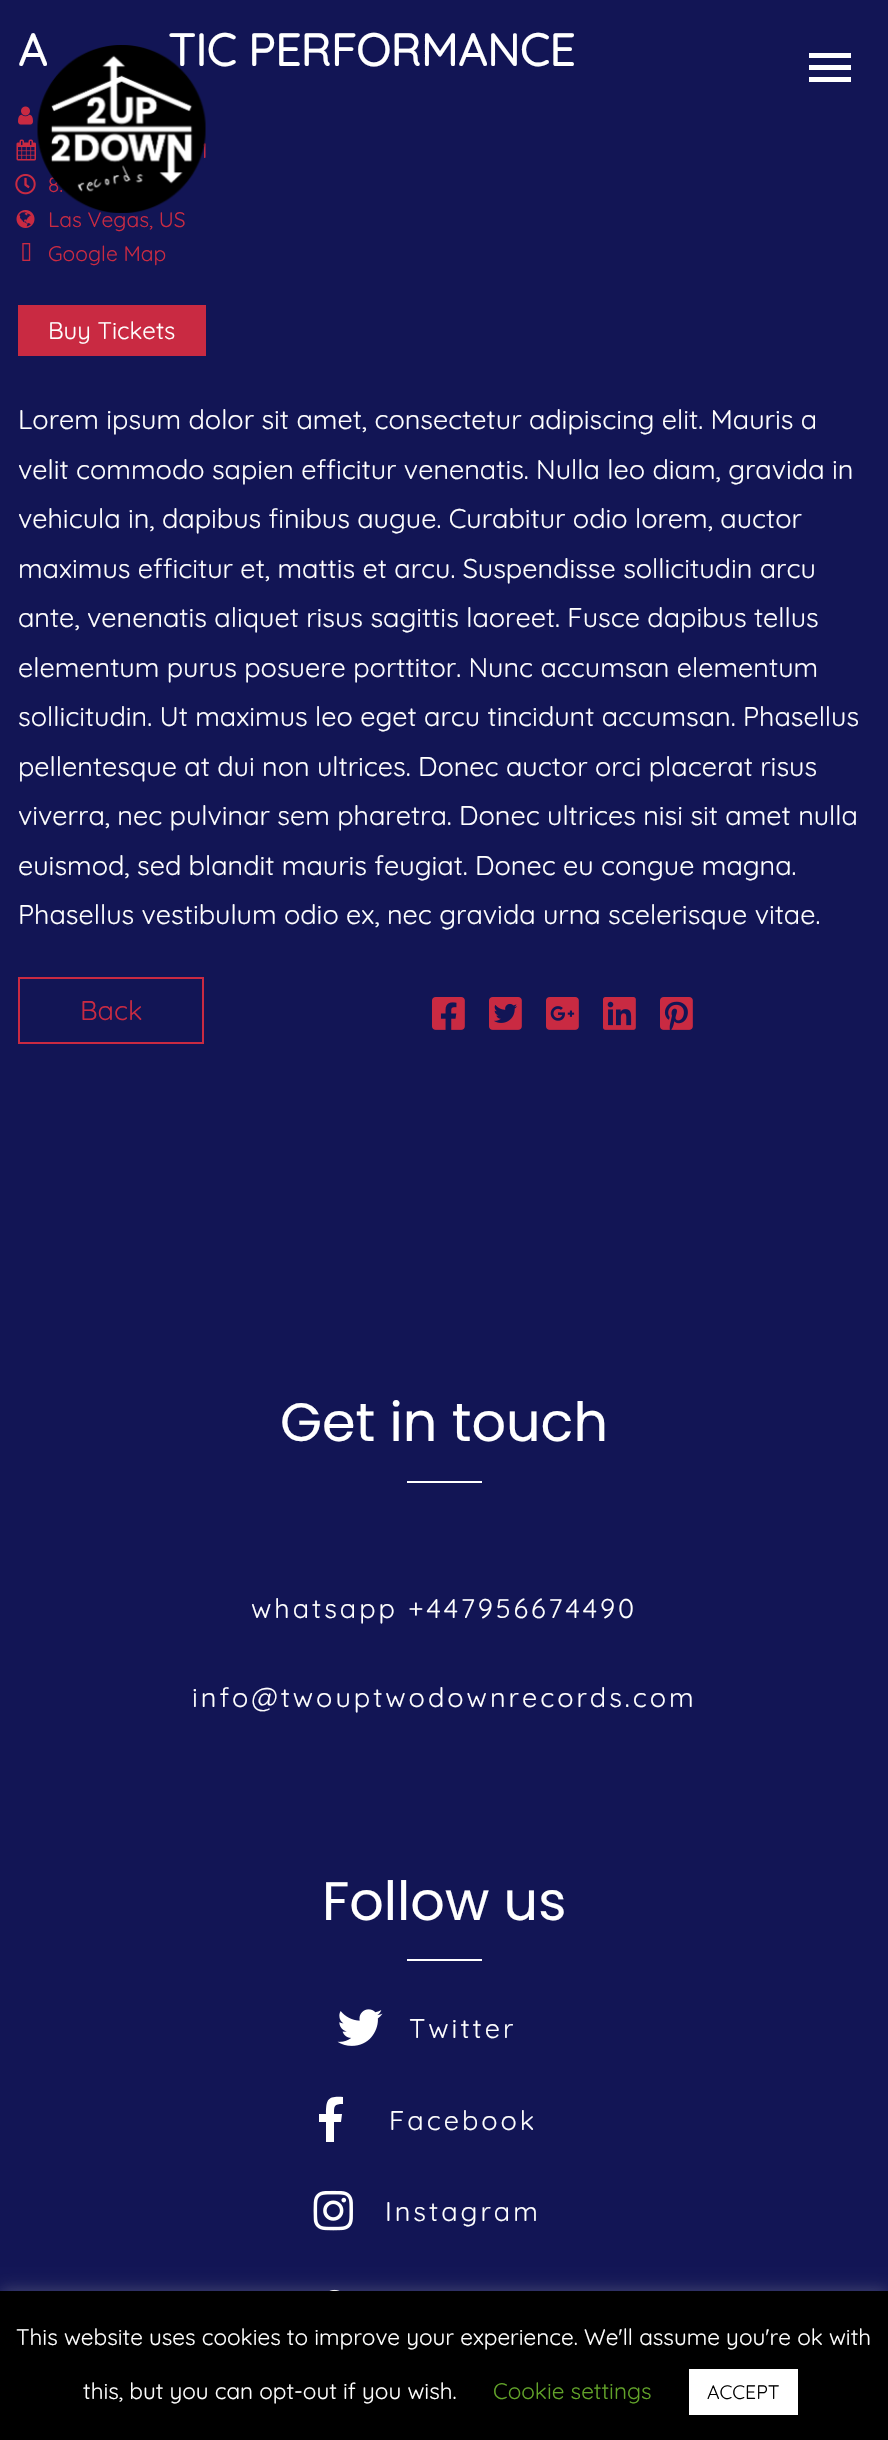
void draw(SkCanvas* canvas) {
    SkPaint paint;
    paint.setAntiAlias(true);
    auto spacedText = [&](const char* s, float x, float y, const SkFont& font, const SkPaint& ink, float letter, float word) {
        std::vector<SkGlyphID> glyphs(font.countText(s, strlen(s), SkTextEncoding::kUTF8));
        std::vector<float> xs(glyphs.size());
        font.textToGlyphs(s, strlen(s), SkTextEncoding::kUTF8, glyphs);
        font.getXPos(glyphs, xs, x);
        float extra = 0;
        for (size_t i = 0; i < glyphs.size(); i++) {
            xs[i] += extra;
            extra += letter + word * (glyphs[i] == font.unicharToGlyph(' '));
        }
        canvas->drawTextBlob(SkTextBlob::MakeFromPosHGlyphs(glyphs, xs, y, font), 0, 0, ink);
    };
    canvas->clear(0xFF121555);
    SkFont font1(fontMgr->matchFamilyStyle("Quicksand", SkFontStyle::Bold()), 45);
    font1.setSubpixel(true);
    paint.setColor(0xFFFFFFFF);
    canvas->drawString("A", 18, 66, font1, paint);
    canvas->drawString("TIC PERFORMANCE", 168, 66, font1, paint);
    canvas->drawImageRect(SkImages::DeferredFromEncodedData(SkData::MakeFromFileName("img1.png")), SkRect::MakeXYWH(18, 106, 15, 19), SkSamplingOptions());
    canvas->drawImageRect(SkImages::DeferredFromEncodedData(SkData::MakeFromFileName("img2.png")), SkRect::MakeXYWH(16, 139, 20, 22), SkSamplingOptions());
    SkFont font2(fontMgr->matchFamilyStyle("Quicksand", SkFontStyle(300, SkFontStyle::kNormal_Width, SkFontStyle::kUpright_Slant)), 21);
    font2.setSubpixel(true);
    paint.setColor(0xFFC92A42);
    canvas->drawString("1", 200, 158, font2, paint);
    canvas->drawImageRect(SkImages::DeferredFromEncodedData(SkData::MakeFromFileName("img3.png")), SkRect::MakeXYWH(15, 174, 21, 21), SkSamplingOptions());
    canvas->drawString("8:", 48, 192, font2, paint);
    canvas->drawImageRect(SkImages::DeferredFromEncodedData(SkData::MakeFromFileName("img4.png")), SkRect::MakeXYWH(16, 210, 19, 18), SkSamplingOptions());
    canvas->drawString("Las Vegas, US", 48, 227, font2, paint);
    canvas->drawImageRect(SkImages::DeferredFromEncodedData(SkData::MakeFromFileName("img5.png")), SkRect::MakeXYWH(22, 243, 9, 18), SkSamplingOptions());
    canvas->drawString("Google Map", 48, 261, font2, paint);
    canvas->drawRect(SkRect::MakeXYWH(18, 305, 188, 51), paint);
    SkFont font3(fontMgr->matchFamilyStyle("Quicksand", SkFontStyle(300, SkFontStyle::kNormal_Width, SkFontStyle::kUpright_Slant)), 24);
    font3.setSubpixel(true);
    paint.setColor(0xFFFFFFFF);
    canvas->drawString("Buy Tickets", 48, 339, font3, paint);
    SkFont font4(fontMgr->matchFamilyStyle("Quicksand", SkFontStyle(300, SkFontStyle::kNormal_Width, SkFontStyle::kUpright_Slant)), 27);
    font4.setSubpixel(true);
    canvas->drawString("Lorem ipsum dolor sit amet, consectetur adipiscing elit. Mauris a", 18, 429, font4, paint);
    canvas->drawString("velit commodo sapien efficitur venenatis. Nulla leo diam, gravida in", 18, 479, font4, paint);
    canvas->drawString("vehicula in, dapibus finibus augue. Curabitur odio lorem, auctor", 18, 528, font4, paint);
    canvas->drawString("maximus efficitur et, mattis et arcu. Suspendisse sollicitudin arcu", 18, 578, font4, paint);
    canvas->drawString("ante, venenatis aliquet risus sagittis laoreet. Fusce dapibus tellus", 18, 627, font4, paint);
    canvas->drawString("elementum purus posuere porttitor. Nunc accumsan elementum", 18, 677, font4, paint);
    canvas->drawString("sollicitudin. Ut maximus leo eget arcu tincidunt accumsan. Phasellus", 18, 726, font4, paint);
    canvas->drawString("pellentesque at dui non ultrices. Donec auctor orci placerat risus", 18, 776, font4, paint);
    canvas->drawString("viverra, nec pulvinar sem pharetra. Donec ultrices nisi sit amet nulla", 18, 825, font4, paint);
    canvas->drawString("euismod, sed blandit mauris feugiat. Donec eu congue magna.", 18, 875, font4, paint);
    canvas->drawString("Phasellus vestibulum odio ex, nec gravida urna scelerisque vitae.", 18, 924, font4, paint);
    paint.setStyle(SkPaint::kStroke_Style);
    paint.setStrokeWidth(2);
    paint.setColor(0xFFC92A42);
    canvas->drawRect(SkRect::MakeXYWH(19, 978, 184, 65), paint);
    paint.setStyle(SkPaint::kFill_Style);
    canvas->drawString("Back", 80, 1020, font4, paint);
    canvas->drawImageRect(SkImages::DeferredFromEncodedData(SkData::MakeFromFileName("img6.png")), SkRect::MakeXYWH(432, 997, 33, 33), SkSamplingOptions());
    canvas->drawImageRect(SkImages::DeferredFromEncodedData(SkData::MakeFromFileName("img7.png")), SkRect::MakeXYWH(489, 997, 33, 33), SkSamplingOptions());
    canvas->drawImageRect(SkImages::DeferredFromEncodedData(SkData::MakeFromFileName("img8.png")), SkRect::MakeXYWH(546, 997, 33, 33), SkSamplingOptions());
    canvas->drawImageRect(SkImages::DeferredFromEncodedData(SkData::MakeFromFileName("img9.png")), SkRect::MakeXYWH(603, 997, 33, 33), SkSamplingOptions());
    canvas->drawImageRect(SkImages::DeferredFromEncodedData(SkData::MakeFromFileName("img10.png")), SkRect::MakeXYWH(660, 997, 33, 33), SkSamplingOptions());
    SkFont font5(fontMgr->matchFamilyStyle("Poppins", SkFontStyle::Normal()), 54);
    font5.setSubpixel(true);
    paint.setColor(0xFFFFFFFF);
    canvas->drawString("Get in touch", 280, 1441, font5, paint);
    canvas->drawRect(SkRect::MakeXYWH(407, 1481, 75, 2), paint);
    spacedText("whatsapp +447956674490", 251, 1618, font4, paint, 3, 0);
    spacedText("info@twouptwodownrecords.com", 192, 1707, font4, paint, 3, 0);
    canvas->drawString("Follow us", 322, 1920, font5, paint);
    canvas->drawRect(SkRect::MakeXYWH(407, 1959, 75, 2), paint);
    canvas->drawImageRect(SkImages::DeferredFromEncodedData(SkData::MakeFromFileName("img11.png")), SkRect::MakeXYWH(337, 2009, 46, 37), SkSamplingOptions());
    spacedText("Twitter", 409, 2038, font4, paint, 3, 0);
    canvas->drawPath(SkPathBuilder().moveTo(341, 2122).lineTo(334, 2122).lineTo(334, 2142).lineTo(326, 2142).lineTo(326, 2122).lineTo(319, 2122).lineTo(319, 2114).lineTo(326, 2114).cubicTo(326, 2099, 328, 2096, 343, 2097).lineTo(343, 2104).cubicTo(334, 2104, 334, 2106, 334, 2114).lineTo(342, 2114).close().detach(), paint);
    spacedText("Facebook", 389, 2130, font4, paint, 3, 0);
    canvas->drawImageRect(SkImages::DeferredFromEncodedData(SkData::MakeFromFileName("img12.png")), SkRect::MakeXYWH(313, 2190, 40, 41), SkSamplingOptions());
    spacedText("Instagram", 385, 2221, font4, paint, 3, 0);
    canvas->drawImageRect(SkImages::DeferredFromEncodedData(SkData::MakeFromFileName("img13.png")), SkRect::MakeXYWH(329, 2289, 11, 2), SkSamplingOptions());
    canvas->drawImageRect(SkImages::DeferredFromEncodedData(SkData::MakeFromFileName("img14.png")), SkRect::MakeXYWH(37, 45, 169, 168), SkSamplingOptions());
    canvas->drawRect(SkRect::MakeXYWH(809, 53, 42, 5), paint);
    canvas->drawRect(SkRect::MakeXYWH(809, 65, 42, 5), paint);
    canvas->drawRect(SkRect::MakeXYWH(809, 77, 42, 5), paint);
    paint.setColor(0x4DACABAB);
    paint.setMaskFilter(SkMaskFilter::MakeBlur(kNormal_SkBlurStyle, 7.5f));
    canvas->drawRect(SkRect::MakeXYWH(0, 2289, 888, 150), paint);
    paint.setMaskFilter(nullptr);
    paint.setColor(0xFF000000);
    canvas->drawRect(SkRect::MakeXYWH(0, 2291, 888, 149), paint);
    SkFont font6(fontMgr->matchFamilyStyle("Quicksand", SkFontStyle(300, SkFontStyle::kNormal_Width, SkFontStyle::kUpright_Slant)), 22.5f);
    font6.setSubpixel(true);
    paint.setColor(0xFFFFFFFF);
    canvas->drawString("This website uses cookies to improve your experience. We'll assume you're ok with", 16, 2345, font6, paint);
    canvas->drawString("this, but you can opt-out if you wish.", 83, 2399, font6, paint);
    paint.setColor(0xFF62A329);
    canvas->drawString("Cookie settings", 493, 2399, font6, paint);
    paint.setColor(0xFFFFFFFF);
    canvas->drawRect(SkRect::MakeXYWH(689, 2369, 109, 46), paint);
    SkFont font7(fontMgr->matchFamilyStyle("Quicksand", SkFontStyle(300, SkFontStyle::kNormal_Width, SkFontStyle::kUpright_Slant)), 19.5f);
    font7.setSubpixel(true);
    paint.setColor(0xFF020202);
    canvas->drawString("ACCEPT", 707, 2399, font7, paint);
}
